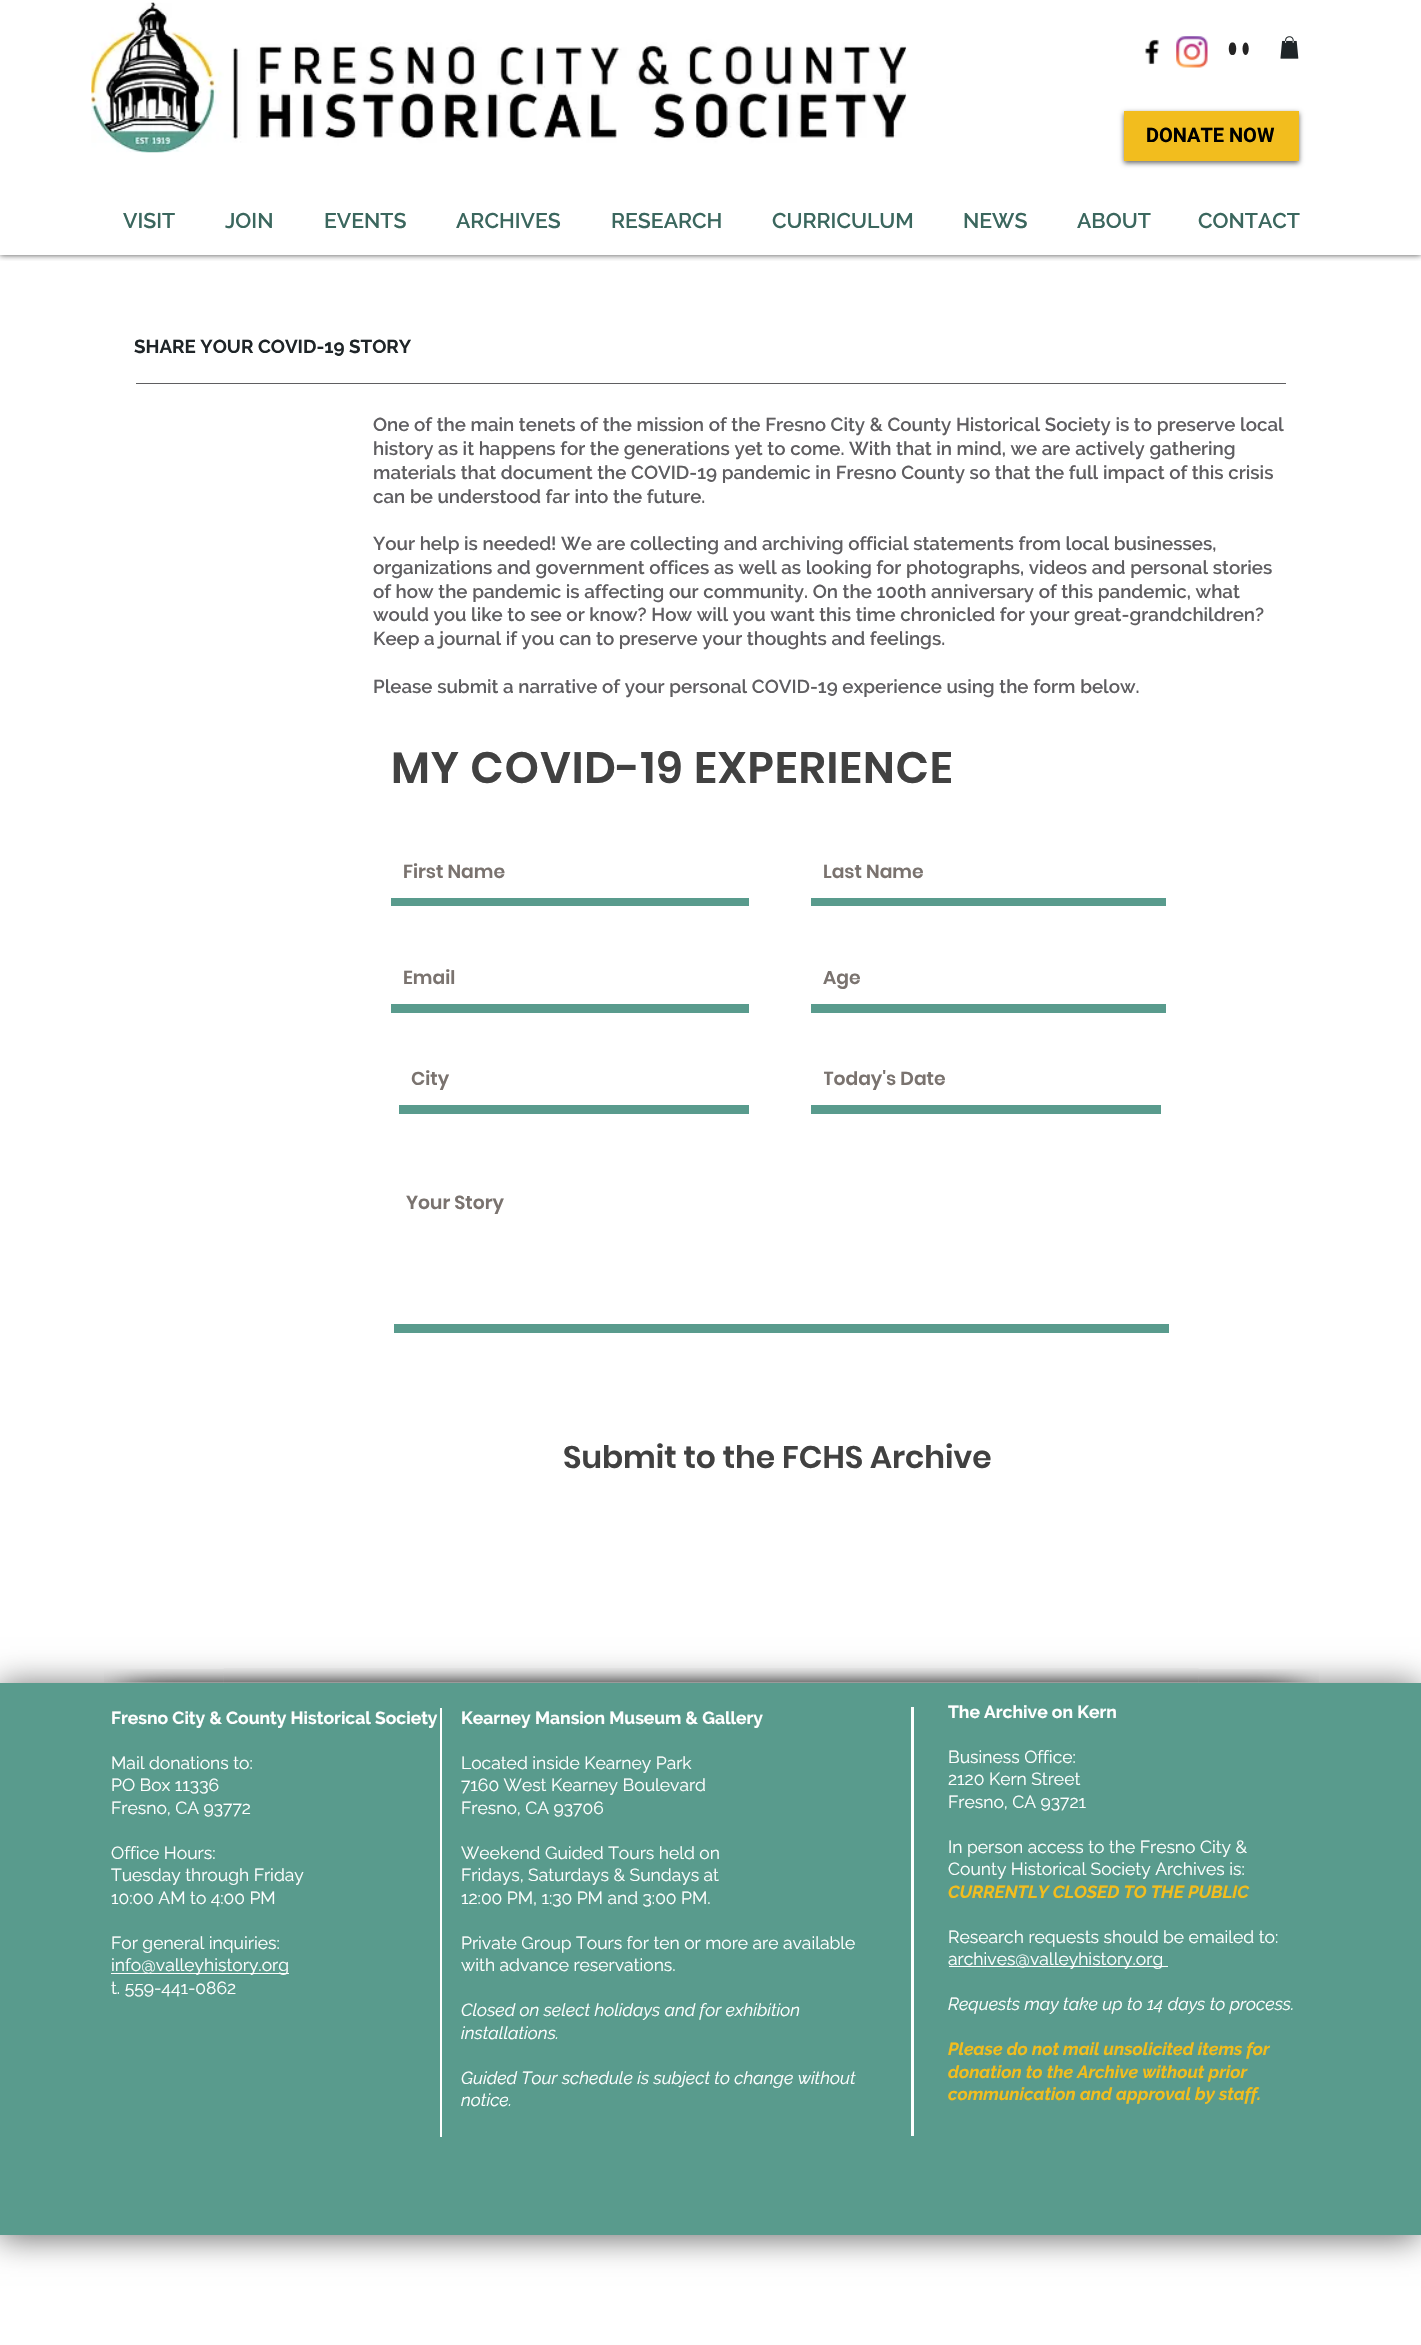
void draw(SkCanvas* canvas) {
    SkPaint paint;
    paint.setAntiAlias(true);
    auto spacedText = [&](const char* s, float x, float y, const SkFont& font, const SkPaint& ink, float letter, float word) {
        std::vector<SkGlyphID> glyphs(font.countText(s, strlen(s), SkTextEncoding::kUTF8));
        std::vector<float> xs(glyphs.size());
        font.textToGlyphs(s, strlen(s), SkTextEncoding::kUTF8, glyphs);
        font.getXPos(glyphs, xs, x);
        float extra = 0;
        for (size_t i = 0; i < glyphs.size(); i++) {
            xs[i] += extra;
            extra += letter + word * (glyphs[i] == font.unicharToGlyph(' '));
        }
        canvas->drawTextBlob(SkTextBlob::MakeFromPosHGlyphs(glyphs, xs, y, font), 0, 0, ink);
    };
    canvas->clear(0xFFFFFFFF);
    canvas->save();
    canvas->clipRect(SkRect::MakeXYWH(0, 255, 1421, 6));
    paint.setColor(0xB3000000);
    paint.setMaskFilter(SkMaskFilter::MakeBlur(kNormal_SkBlurStyle, 3));
    canvas->drawRect(SkRect::MakeXYWH(0, 0, 1421, 255), paint);
    paint.setMaskFilter(nullptr);
    canvas->restore();
    canvas->drawImageRect(SkImages::DeferredFromEncodedData(SkData::MakeFromFileName("img1.png")), SkRect::MakeXYWH(91, 2, 816, 151), SkSamplingOptions());
    canvas->drawImageRect(SkImages::DeferredFromEncodedData(SkData::MakeFromFileName("img2.png")), SkRect::MakeXYWH(1145, 39, 14, 26), SkSamplingOptions());
    canvas->drawImageRect(SkImages::DeferredFromEncodedData(SkData::MakeFromFileName("img3.png")), SkRect::MakeXYWH(1176, 36, 32, 32), SkSamplingOptions());
    canvas->drawImageRect(SkImages::DeferredFromEncodedData(SkData::MakeFromFileName("img4.png")), SkRect::MakeXYWH(1228, 42, 7, 13), SkSamplingOptions());
    canvas->drawImageRect(SkImages::DeferredFromEncodedData(SkData::MakeFromFileName("img5.png")), SkRect::MakeXYWH(1280, 36, 19, 23), SkSamplingOptions());
    canvas->drawImageRect(SkImages::DeferredFromEncodedData(SkData::MakeFromFileName("img6.png")), SkRect::MakeXYWH(1232, 42, 5, 13), SkSamplingOptions());
    canvas->drawImageRect(SkImages::DeferredFromEncodedData(SkData::MakeFromFileName("img7.png")), SkRect::MakeXYWH(1242, 42, 7, 13), SkSamplingOptions());
    paint.setColor(0x99000000);
    paint.setMaskFilter(SkMaskFilter::MakeBlur(kNormal_SkBlurStyle, 2.5f));
    canvas->drawRect(SkRect::MakeXYWH(1124, 113, 175, 50), paint);
    paint.setMaskFilter(nullptr);
    paint.setColor(0xFFF2BD1E);
    canvas->drawRect(SkRect::MakeXYWH(1124, 111, 175, 50), paint);
    SkFont font1(fontMgr->matchFamilyStyle("Roboto", SkFontStyle::Bold()), 20);
    font1.setSubpixel(true);
    paint.setColor(0xFF000000);
    canvas->drawString("DONATE NOW", 1146, 142, font1, paint);
    SkFont font2(fontMgr->matchFamilyStyle("Raleway", SkFontStyle(600, SkFontStyle::kNormal_Width, SkFontStyle::kUpright_Slant)), 21.25f);
    font2.setSubpixel(true);
    paint.setColor(0xFF3B675E);
    canvas->drawString("VISIT", 123, 228, font2, paint);
    canvas->drawString("JOIN", 225, 228, font2, paint);
    canvas->drawString("EVENTS", 324, 228, font2, paint);
    canvas->drawString("ARCHIVES", 456, 228, font2, paint);
    canvas->drawString("RESEARCH", 611, 228, font2, paint);
    canvas->drawString("CURRICULUM", 772, 228, font2, paint);
    canvas->drawString("NEWS", 963, 228, font2, paint);
    canvas->drawString("ABOUT", 1077, 228, font2, paint);
    canvas->drawString("CONTACT", 1198, 228, font2, paint);
    SkFont font3(fontMgr->matchFamilyStyle("Raleway", SkFontStyle::Bold()), 18.75f);
    font3.setSubpixel(true);
    paint.setColor(0xFF1F2528);
    canvas->drawString("SHARE YOUR COVID-19 STORY", 134, 353, font3, paint);
    paint.setColor(0xFF5F5E61);
    canvas->drawRect(SkRect::MakeXYWH(136, 383, 1150, 1), paint);
    SkFont font4(fontMgr->matchFamilyStyle("Raleway", SkFontStyle(600, SkFontStyle::kNormal_Width, SkFontStyle::kUpright_Slant)), 18.75f);
    font4.setSubpixel(true);
    canvas->drawString("One of the main tenets of the mission of the Fresno City & County Historical Society is to preserve local", 373, 431, font4, paint);
    canvas->drawString("history as it happens for the generations yet to come. With that in mind, we are actively gathering", 373, 455, font4, paint);
    canvas->drawString("materials that document the COVID-19 pandemic in Fresno County so that the full impact of this crisis", 373, 479, font4, paint);
    canvas->drawString("can be understood far into the future.", 373, 503, font4, paint);
    canvas->drawString("Your help is needed! We are collecting and archiving official statements from local businesses,", 373, 550, font4, paint);
    canvas->drawString("organizations and government offices as well as looking for photographs, videos and personal stories", 373, 574, font4, paint);
    canvas->drawString("of how the pandemic is affecting our community. On the 100th anniversary of this pandemic, what", 373, 598, font4, paint);
    canvas->drawString("would you like to see or know? How will you want this time chronicled for your great-grandchildren?", 373, 621, font4, paint);
    canvas->drawString("Keep a journal if you can to preserve your thoughts and feelings.", 373, 645, font4, paint);
    canvas->drawString("Please submit a narrative of your personal COVID-19 experience using the form below.", 373, 693, font4, paint);
    SkFont font5(fontMgr->matchFamilyStyle("Poppins", SkFontStyle(600, SkFontStyle::kNormal_Width, SkFontStyle::kUpright_Slant)), 43.75f);
    font5.setSubpixel(true);
    paint.setColor(0xFF414141);
    spacedText("MY COVID-19 EXPERIENCE", 391, 783, font5, paint, 0.9f, 0);
    paint.setColor(0xFF599B8D);
    canvas->drawRect(SkRect::MakeXYWH(391, 898, 358, 8), paint);
    SkFont font6(fontMgr->matchFamilyStyle("Poppins", SkFontStyle(600, SkFontStyle::kNormal_Width, SkFontStyle::kUpright_Slant)), 18.75f);
    font6.setSubpixel(true);
    paint.setColor(0xFF7A736F);
    canvas->drawString("First Name", 403, 878, font6, paint);
    paint.setColor(0xFF599B8D);
    canvas->drawRect(SkRect::MakeXYWH(811, 898, 355, 8), paint);
    paint.setColor(0xFF7A736F);
    canvas->drawString("Last Name", 823, 878, font6, paint);
    paint.setColor(0xFF599B8D);
    canvas->drawRect(SkRect::MakeXYWH(391, 1004, 358, 9), paint);
    paint.setColor(0xFF7A736F);
    canvas->drawString("Email", 403, 984, font6, paint);
    paint.setColor(0xFF599B8D);
    canvas->drawRect(SkRect::MakeXYWH(811, 1004, 355, 9), paint);
    paint.setColor(0xFF7A736F);
    canvas->drawString("Age", 823, 984, font6, paint);
    paint.setColor(0xFF599B8D);
    canvas->drawRect(SkRect::MakeXYWH(399, 1105, 350, 9), paint);
    paint.setColor(0xFF7A736F);
    canvas->drawString("City", 411, 1085, font6, paint);
    paint.setColor(0xFF599B8D);
    canvas->drawRect(SkRect::MakeXYWH(811, 1105, 350, 9), paint);
    canvas->save();
    canvas->clipRect(SkRect::MakeXYWH(824, 1064, 334, 29));
    paint.setColor(0xFF7A736F);
    canvas->drawString("Today's Date", 823, 1085, font6, paint);
    canvas->restore();
    paint.setColor(0xFF599B8D);
    canvas->drawRect(SkRect::MakeXYWH(394, 1324, 775, 9), paint);
    paint.setColor(0xFF7A736F);
    canvas->drawString("Your Story", 406, 1209, font6, paint);
    SkFont font7(fontMgr->matchFamilyStyle("Poppins", SkFontStyle(600, SkFontStyle::kNormal_Width, SkFontStyle::kUpright_Slant)), 31.25f);
    font7.setSubpixel(true);
    paint.setColor(0xFF414141);
    canvas->drawString("Submit to the FCHS Archive", 563, 1468, font7, paint);
    paint.setColor(0x96000000);
    paint.setMaskFilter(SkMaskFilter::MakeBlur(kNormal_SkBlurStyle, 16));
    canvas->drawRect(SkRect::MakeXYWH(-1, 1685, 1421, 553), paint);
    paint.setMaskFilter(nullptr);
    paint.setColor(0xFF599B8D);
    canvas->drawRect(SkRect::MakeXYWH(0, 1683, 1421, 552), paint);
    canvas->drawImageRect(SkImages::DeferredFromEncodedData(SkData::MakeFromFileName("img8.png")), SkRect::MakeXYWH(104, 1669, 120, 14), SkSamplingOptions());
    canvas->drawImageRect(SkImages::DeferredFromEncodedData(SkData::MakeFromFileName("img9.png")), SkRect::MakeXYWH(223, 1668, 976, 15), SkSamplingOptions());
    canvas->drawImageRect(SkImages::DeferredFromEncodedData(SkData::MakeFromFileName("img10.png")), SkRect::MakeXYWH(1198, 1669, 121, 14), SkSamplingOptions());
    SkFont font8(fontMgr->matchFamilyStyle("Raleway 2", SkFontStyle::Bold()), 17.5f);
    font8.setSubpixel(true);
    paint.setColor(0xFFFFFFFF);
    canvas->drawString("Fresno City & County Historical Society", 111, 1724, font8, paint);
    SkFont font9(fontMgr->matchFamilyStyle("Raleway", SkFontStyle::Normal()), 17.5f);
    font9.setSubpixel(true);
    canvas->drawString("Mail donations to:", 111, 1769, font9, paint);
    canvas->drawString("PO Box 11336", 111, 1791, font9, paint);
    canvas->drawString("Fresno, CA 93772", 111, 1814, font9, paint);
    canvas->drawString("Office Hours:", 111, 1859, font9, paint);
    canvas->drawString("Tuesday through Friday", 111, 1881, font9, paint);
    canvas->drawString("10:00 AM to 4:00 PM", 111, 1904, font9, paint);
    canvas->drawString("For general inquiries:", 111, 1949, font9, paint);
    canvas->drawRect(SkRect::MakeXYWH(111, 1973, 178, 1), paint);
    canvas->drawString("info@valleyhistory.org", 111, 1971, font9, paint);
    canvas->drawString("t. 559-441-0862", 111, 1994, font9, paint);
    canvas->drawRect(SkRect::MakeXYWH(440, 1708, 2, 429), paint);
    canvas->drawString("Kearney Mansion Museum & Gallery", 461, 1724, font8, paint);
    canvas->drawString("Located inside Kearney Park", 461, 1769, font9, paint);
    canvas->drawString("7160 West Kearney Boulevard", 461, 1791, font9, paint);
    canvas->drawString("Fresno, CA 93706", 461, 1814, font9, paint);
    canvas->drawString("Weekend Guided Tours held on", 461, 1859, font9, paint);
    canvas->drawString("Fridays, Saturdays & Sundays at", 461, 1881, font9, paint);
    canvas->drawString("12:00 PM, 1:30 PM and 3:00 PM.", 461, 1904, font9, paint);
    canvas->drawString("Private Group Tours for ten or more are available", 461, 1949, font9, paint);
    canvas->drawString("with advance reservations.", 461, 1971, font9, paint);
    SkFont font10(fontMgr->matchFamilyStyle("Raleway", SkFontStyle::Italic()), 17.5f);
    font10.setSubpixel(true);
    canvas->drawString("Closed on select holidays and for exhibition", 461, 2016, font10, paint);
    canvas->drawString("installations.", 461, 2039, font10, paint);
    canvas->drawString("Guided Tour schedule is subject to change without", 461, 2084, font10, paint);
    canvas->drawString("notice.", 461, 2106, font10, paint);
    canvas->drawRect(SkRect::MakeXYWH(911, 1707, 3, 429), paint);
    canvas->drawString("The Archive on Kern", 948, 1718, font8, paint);
    canvas->drawString("Business Office:", 948, 1763, font9, paint);
    canvas->drawString("2120 Kern Street", 948, 1785, font9, paint);
    canvas->drawString("Fresno, CA 93721", 948, 1808, font9, paint);
    canvas->drawString("In person access to the Fresno City &", 948, 1853, font9, paint);
    canvas->drawString("County Historical Society Archives is:", 948, 1875, font9, paint);
    SkFont font11(fontMgr->matchFamilyStyle("Raleway", SkFontStyle::BoldItalic()), 17.5f);
    font11.setSubpixel(true);
    paint.setColor(0xFFF2BD1E);
    canvas->drawString("CURRENTLY CLOSED TO THE PUBLIC", 948, 1898, font11, paint);
    paint.setColor(0xFFFFFFFF);
    canvas->drawString("Research requests should be emailed to:", 948, 1943, font9, paint);
    canvas->drawRect(SkRect::MakeXYWH(949, 1966, 219, 1), paint);
    canvas->drawString("archives@valleyhistory.org", 948, 1965, font9, paint);
    canvas->drawString("Requests may take up to 14 days to process.", 948, 2010, font10, paint);
    paint.setColor(0xFFF2BD1E);
    canvas->drawString("Please do not mail unsolicited items for", 948, 2055, font11, paint);
    canvas->drawString("donation to the Archive without prior", 948, 2078, font11, paint);
    canvas->drawString("communication and approval by staff.", 948, 2100, font11, paint);
}
